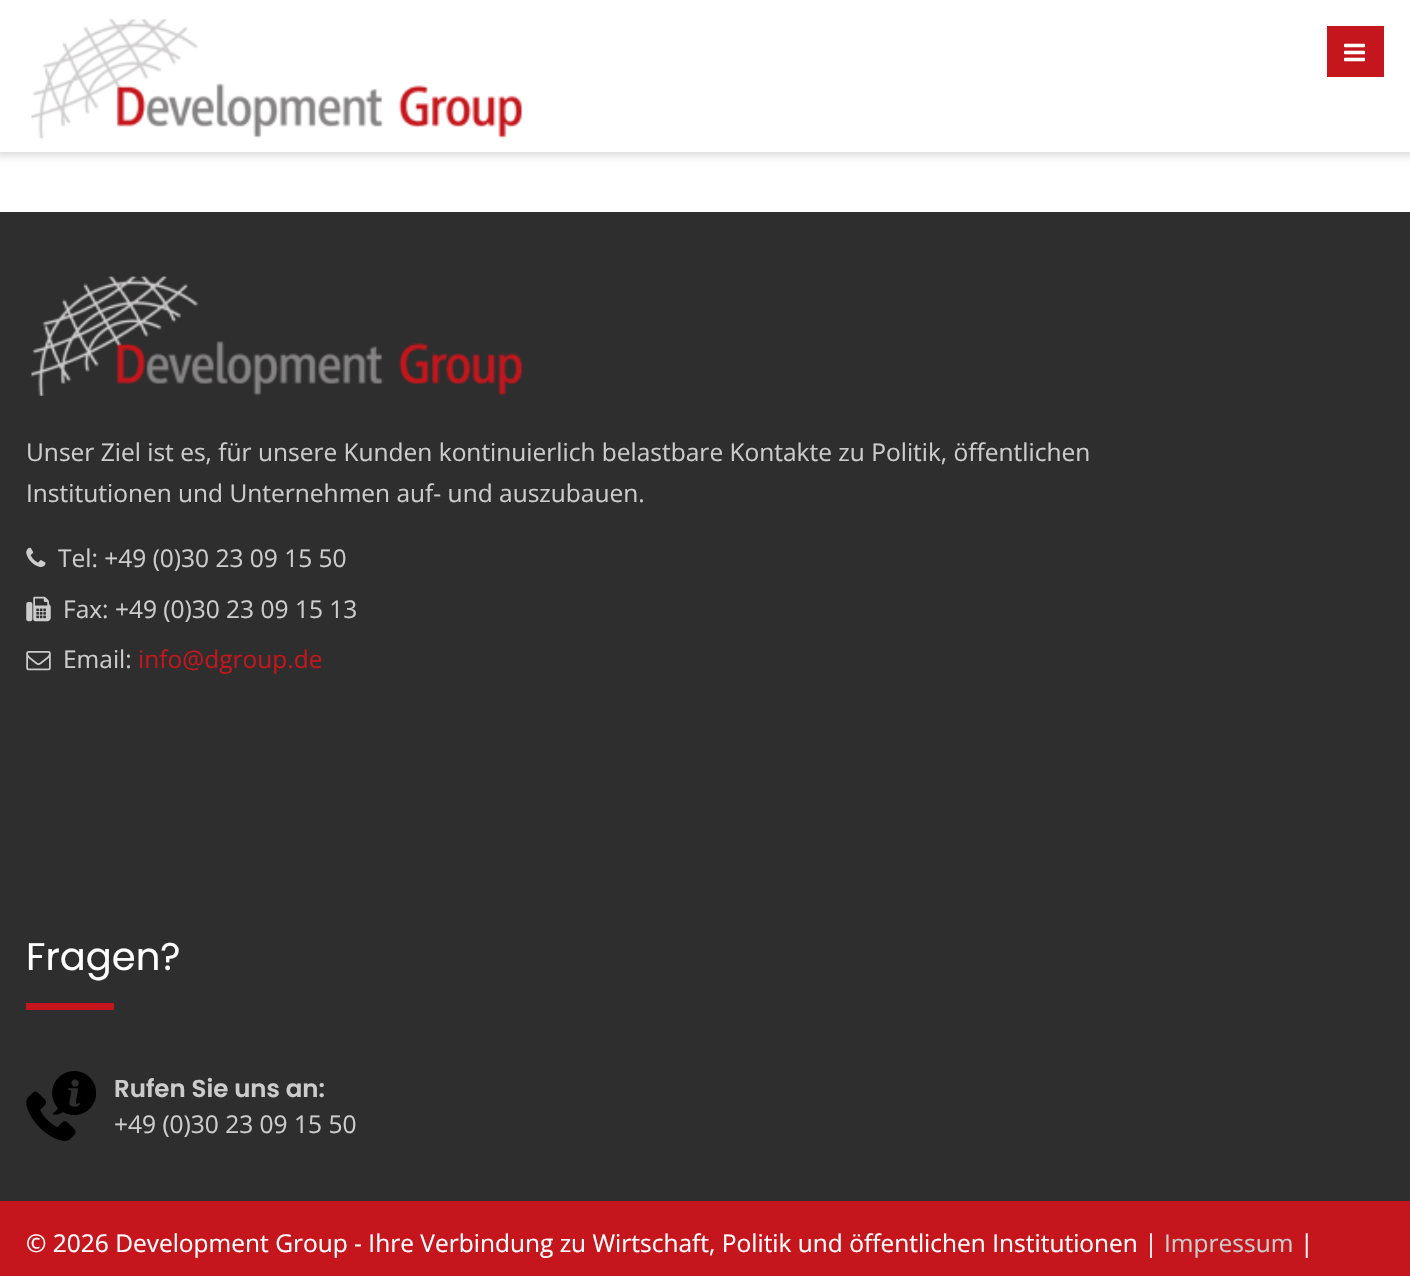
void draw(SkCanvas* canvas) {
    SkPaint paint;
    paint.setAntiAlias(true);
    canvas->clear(0xFFFFFFFF);
    paint.setColor(0xFFDDDDDD);
    paint.setMaskFilter(SkMaskFilter::MakeBlur(kNormal_SkBlurStyle, 3.5f));
    canvas->drawRect(SkRect::MakeXYWH(-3, -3, 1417, 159), paint);
    paint.setMaskFilter(nullptr);
    paint.setColor(0xFFFFFFFF);
    canvas->drawRect(SkRect::MakeXYWH(0, 0, 1410, 152), paint);
    canvas->drawImageRect(SkImages::DeferredFromEncodedData(SkData::MakeFromFileName("img1.png")), SkRect::MakeXYWH(31, 19, 491, 120), SkSamplingOptions());
    paint.setColor(0xFFC4161C);
    canvas->drawRect(SkRect::MakeXYWH(1327, 26, 57, 51), paint);
    canvas->drawImageRect(SkImages::DeferredFromEncodedData(SkData::MakeFromFileName("img2.png")), SkRect::MakeXYWH(1344, 43, 21, 19), SkSamplingOptions());
    paint.setColor(0xFF2E2E2E);
    canvas->drawRect(SkRect::MakeXYWH(0, 212, 1410, 989), paint);
    canvas->drawImageRect(SkImages::DeferredFromEncodedData(SkData::MakeFromFileName("img3.png")), SkRect::MakeXYWH(31, 276, 491, 120), SkSamplingOptions());
    SkFont font1(fontMgr->matchFamilyStyle("Open Sans", SkFontStyle::Normal()), 24.5f);
    font1.setSubpixel(true);
    paint.setColor(0xFFCCCCCC);
    canvas->drawString("Unser Ziel ist es, für unsere Kunden kontinuierlich belastbare Kontakte zu Politik, öffentlichen", 26, 461, font1, paint);
    canvas->drawString("Institutionen und Unternehmen auf- und auszubauen.", 26, 502, font1, paint);
    canvas->drawImageRect(SkImages::DeferredFromEncodedData(SkData::MakeFromFileName("img4.png")), SkRect::MakeXYWH(26, 547, 20, 20), SkSamplingOptions());
    canvas->drawString("Tel: +49 (0)30 23 09 15 50", 58, 567, font1, paint);
    canvas->drawImageRect(SkImages::DeferredFromEncodedData(SkData::MakeFromFileName("img5.png")), SkRect::MakeXYWH(26, 596, 25, 26), SkSamplingOptions());
    canvas->drawString("Fax: +49 (0)30 23 09 15 13", 63, 618, font1, paint);
    canvas->drawImageRect(SkImages::DeferredFromEncodedData(SkData::MakeFromFileName("img6.png")), SkRect::MakeXYWH(26, 651, 25, 20), SkSamplingOptions());
    canvas->drawString("Email:", 63, 668, font1, paint);
    paint.setColor(0xFFC4161C);
    canvas->drawString("info@dgroup.de", 138, 668, font1, paint);
    SkFont font2(fontMgr->matchFamilyStyle("Poppins", SkFontStyle::Normal()), 38.5f);
    font2.setSubpixel(true);
    paint.setColor(0xFFFFFFFF);
    canvas->drawString("Fragen?", 26, 970, font2, paint);
    paint.setColor(0xFFC4161C);
    canvas->drawRect(SkRect::MakeXYWH(26, 1003, 88, 7), paint);
    canvas->drawImageRect(SkImages::DeferredFromEncodedData(SkData::MakeFromFileName("img7.png")), SkRect::MakeXYWH(26, 1071, 70, 70), SkSamplingOptions());
    SkFont font3(fontMgr->matchFamilyStyle("Poppins", SkFontStyle(600, SkFontStyle::kNormal_Width, SkFontStyle::kUpright_Slant)), 24.5f);
    font3.setSubpixel(true);
    paint.setColor(0xFFCCCCCC);
    canvas->drawString("Rufen Sie uns an:", 114, 1097, font3, paint);
    canvas->drawString("+49 (0)30 23 09 15 50", 114, 1133, font1, paint);
    paint.setColor(0xFFC4161C);
    canvas->drawRect(SkRect::MakeXYWH(0, 1201, 1410, 75), paint);
    paint.setColor(0xFFFFFFFF);
    canvas->drawString("© 2026 Development Group - Ihre Verbindung zu Wirtschaft, Politik und öffentlichen Institutionen |", 26, 1252, font1, paint);
    paint.setColor(0xFFCCCCCC);
    canvas->drawString("Impressum", 1164, 1252, font1, paint);
    paint.setColor(0xFFFFFFFF);
    canvas->drawString("|", 1300, 1252, font1, paint);
}
